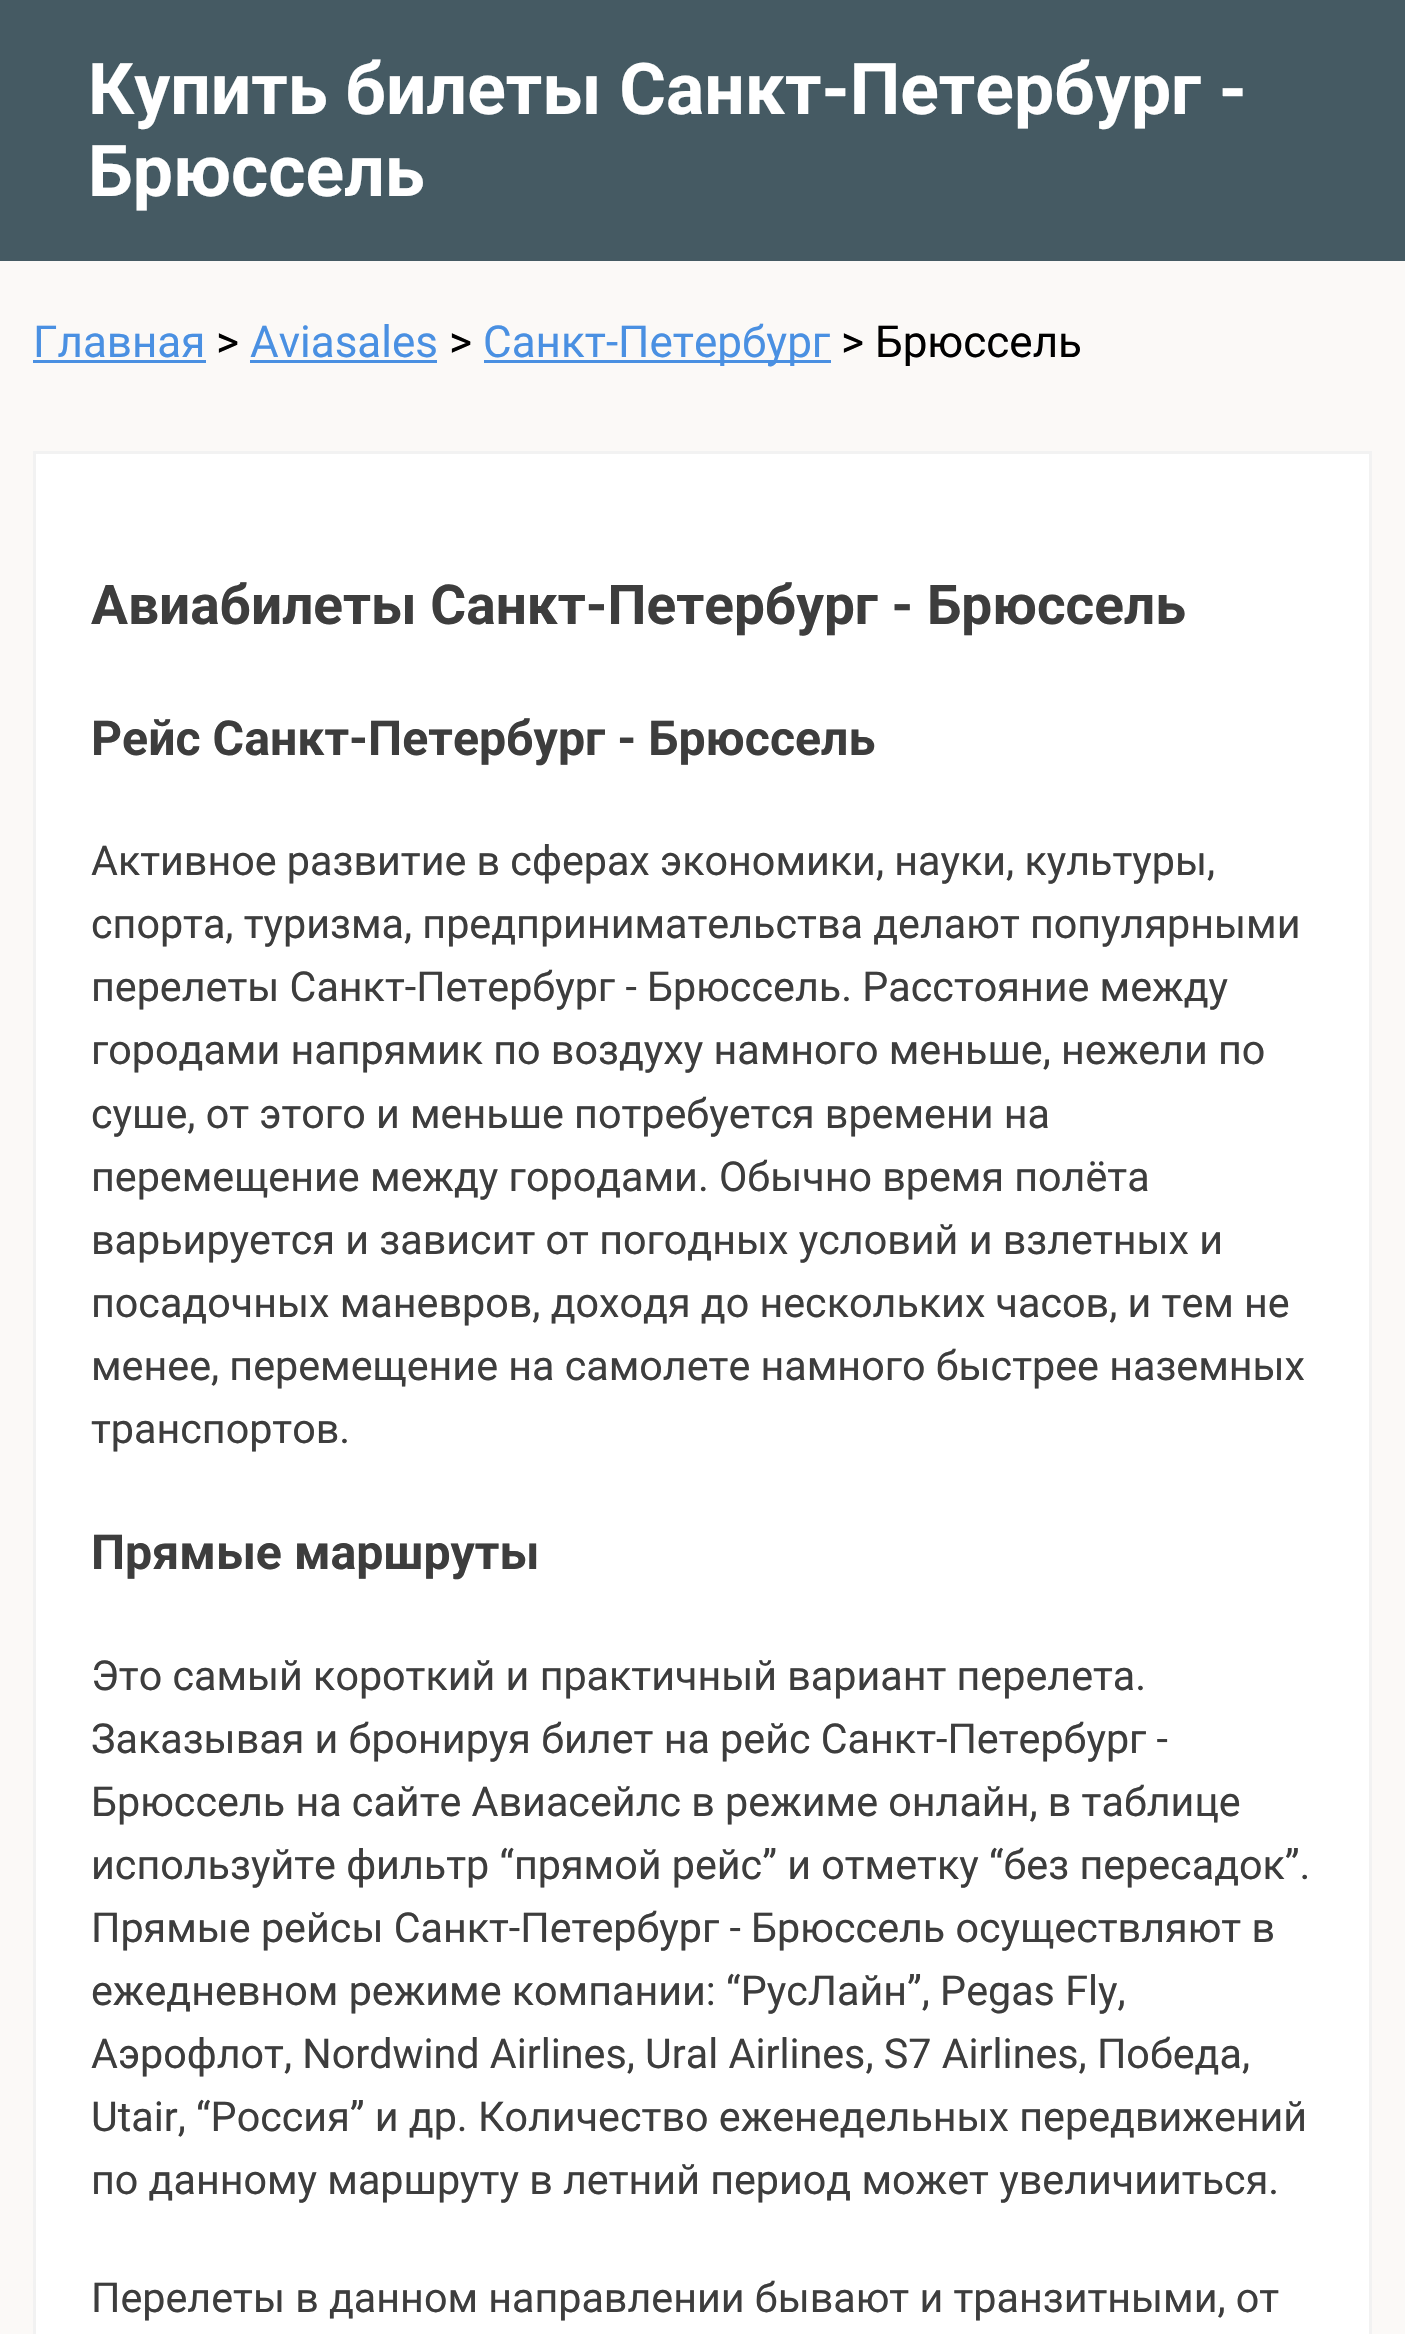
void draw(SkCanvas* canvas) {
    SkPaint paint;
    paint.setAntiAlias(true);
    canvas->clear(0xFFFBF9F7);
    paint.setColor(0xFF455A63);
    canvas->drawRect(SkRect::MakeXYWH(0, 0, 1405, 261), paint);
    SkFont font1(fontMgr->matchFamilyStyle("Roboto", SkFontStyle::Bold()), 71.5f);
    font1.setSubpixel(true);
    paint.setColor(0xFFFFFFFF);
    canvas->drawString("Купить билеты Санкт-Петербург -", 88, 114, font1, paint);
    canvas->drawString("Брюссель", 88, 196, font1, paint);
    SkFont font2(fontMgr->matchFamilyStyle("Roboto", SkFontStyle::Normal()), 44);
    font2.setSubpixel(true);
    paint.setColor(0xFF4A90E2);
    canvas->drawString("Главная", 33, 357, font2, paint);
    canvas->drawRect(SkRect::MakeXYWH(33, 360, 173, 3), paint);
    paint.setColor(0xFF000000);
    canvas->drawString(">", 216, 357, font2, paint);
    paint.setColor(0xFF4A90E2);
    canvas->drawString("Aviasales", 250, 357, font2, paint);
    canvas->drawRect(SkRect::MakeXYWH(250, 360, 187, 3), paint);
    paint.setColor(0xFF000000);
    canvas->drawString(">", 449, 357, font2, paint);
    paint.setColor(0xFF4A90E2);
    canvas->drawRect(SkRect::MakeXYWH(484, 360, 347, 3), paint);
    canvas->drawString("Санкт-Петербург", 483, 357, font2, paint);
    paint.setColor(0xFF000000);
    canvas->drawString("> Брюссель", 841, 357, font2, paint);
    paint.setColor(0xFFFFFFFF);
    canvas->drawRect(SkRect::MakeXYWH(34.5f, 452.5f, 1336, 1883), paint);
    paint.setStyle(SkPaint::kStroke_Style);
    paint.setStrokeWidth(3);
    paint.setColor(0xFFF2F2F2);
    canvas->drawRect(SkRect::MakeXYWH(34.5f, 452.5f, 1336, 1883), paint);
    SkFont font3(fontMgr->matchFamilyStyle("Roboto", SkFontStyle::Bold()), 55);
    font3.setSubpixel(true);
    paint.setStyle(SkPaint::kFill_Style);
    paint.setColor(0xFF3D3D3D);
    canvas->drawString("Авиабилеты Санкт-Петербург - Брюссель", 91, 624, font3, paint);
    SkFont font4(fontMgr->matchFamilyStyle("Roboto", SkFontStyle::Bold()), 48.25f);
    font4.setSubpixel(true);
    canvas->drawString("Рейс Санкт-Петербург - Брюссель", 91, 755, font4, paint);
    SkFont font5(fontMgr->matchFamilyStyle("Roboto", SkFontStyle::Normal()), 41.25f);
    font5.setSubpixel(true);
    canvas->drawString("Активное развитие в сферах экономики, науки, культуры,", 91, 875, font5, paint);
    canvas->drawString("спорта, туризма, предпринимательства делают популярными", 91, 938, font5, paint);
    canvas->drawString("перелеты Санкт-Петербург - Брюссель. Расстояние между", 91, 1001, font5, paint);
    canvas->drawString("городами напрямик по воздуху намного меньше, нежели по", 91, 1064, font5, paint);
    canvas->drawString("суше, от этого и меньше потребуется времени на", 91, 1128, font5, paint);
    canvas->drawString("перемещение между городами. Обычно время полёта", 91, 1191, font5, paint);
    canvas->drawString("варьируется и зависит от погодных условий и взлетных и", 91, 1254, font5, paint);
    canvas->drawString("посадочных маневров, доходя до нескольких часов, и тем не", 91, 1317, font5, paint);
    canvas->drawString("менее, перемещение на самолете намного быстрее наземных", 91, 1380, font5, paint);
    canvas->drawString("транспортов.", 91, 1443, font5, paint);
    canvas->drawString("Прямые маршруты", 91, 1569, font4, paint);
    canvas->drawString("Это самый короткий и практичный вариант перелета.", 91, 1690, font5, paint);
    canvas->drawString("Заказывая и бронируя билет на рейс Санкт-Петербург -", 91, 1753, font5, paint);
    canvas->drawString("Брюссель на сайте Авиасейлс в режиме онлайн, в таблице", 91, 1816, font5, paint);
    canvas->drawString("используйте фильтр “прямой рейс” и отметку “без пересадок”.", 91, 1879, font5, paint);
    canvas->drawString("Прямые рейсы Санкт-Петербург - Брюссель осуществляют в", 91, 1942, font5, paint);
    canvas->drawString("ежедневном режиме компании: “РусЛайн”, Pegas Fly,", 91, 2005, font5, paint);
    canvas->drawString("Аэрофлот, Nordwind Airlines, Ural Airlines, S7 Airlines, Победа,", 91, 2068, font5, paint);
    canvas->drawString("Utair, “Россия” и др. Количество еженедельных передвижений", 91, 2131, font5, paint);
    canvas->drawString("по данному маршруту в летний период может увеличииться.", 91, 2194, font5, paint);
    canvas->drawString("Перелеты в данном направлении бывают и транзитными, от", 91, 2312, font5, paint);
}
